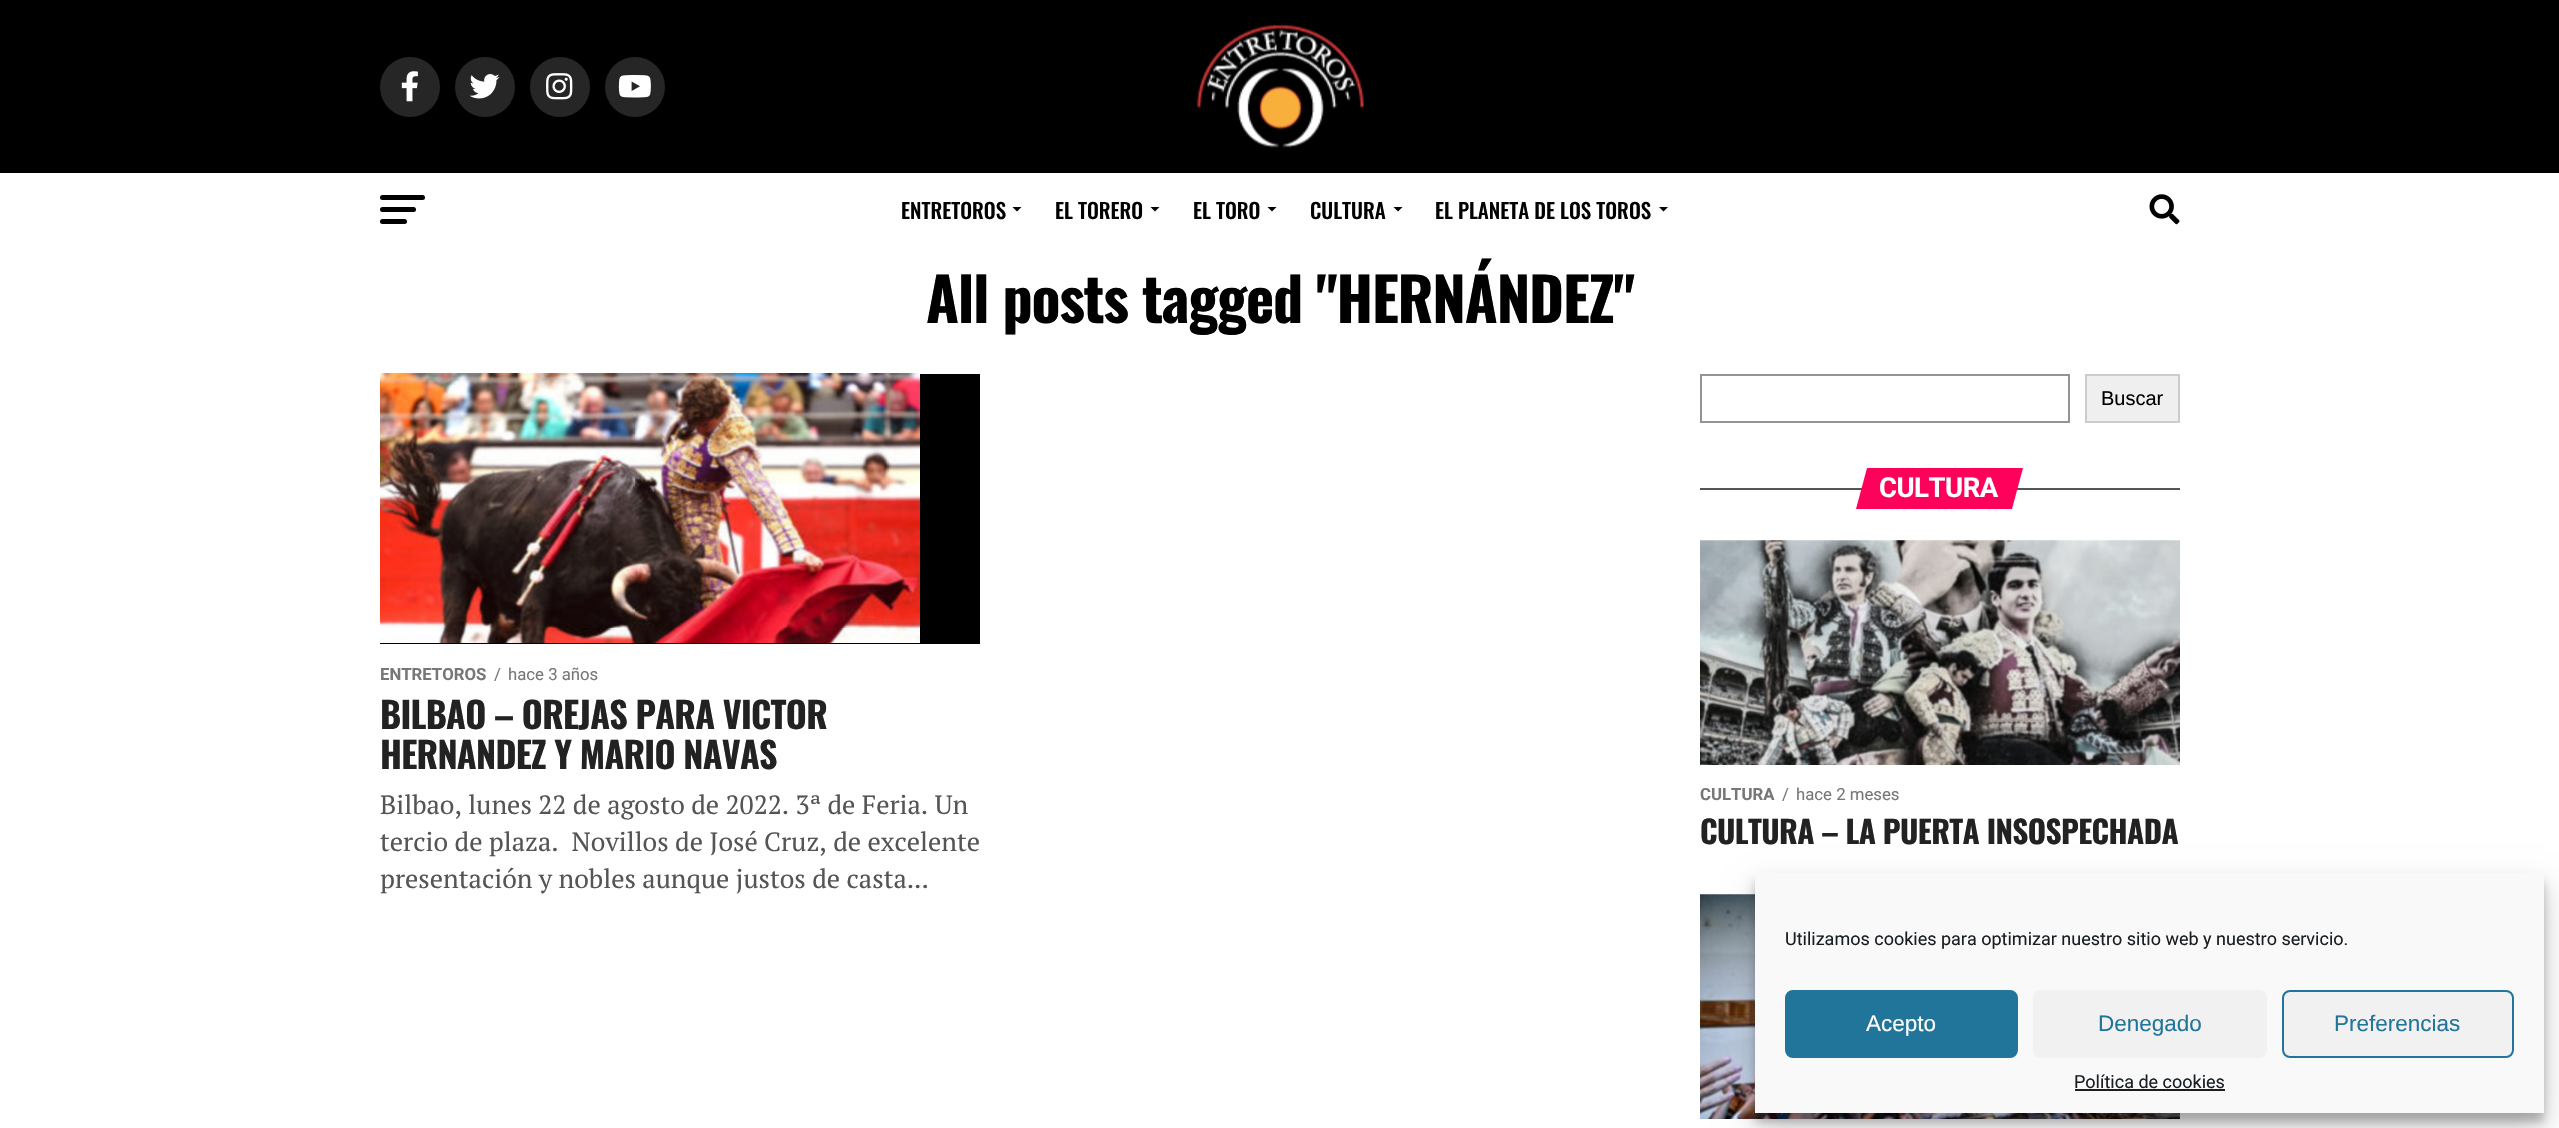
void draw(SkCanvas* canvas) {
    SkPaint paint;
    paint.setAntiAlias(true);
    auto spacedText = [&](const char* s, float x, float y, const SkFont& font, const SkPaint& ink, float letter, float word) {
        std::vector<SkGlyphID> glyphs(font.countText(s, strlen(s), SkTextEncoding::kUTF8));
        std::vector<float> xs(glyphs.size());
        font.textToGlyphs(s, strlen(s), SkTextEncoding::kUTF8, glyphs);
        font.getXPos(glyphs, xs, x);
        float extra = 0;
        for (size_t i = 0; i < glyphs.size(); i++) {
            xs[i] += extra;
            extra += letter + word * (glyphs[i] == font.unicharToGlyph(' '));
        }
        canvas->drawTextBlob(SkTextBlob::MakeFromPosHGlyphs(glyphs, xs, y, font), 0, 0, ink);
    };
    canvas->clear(0xFFFFFFFF);
    paint.setColor(0xFF000000);
    canvas->drawRect(SkRect::MakeXYWH(0, 0, 2559, 173), paint);
    paint.setColor(0xFF262626);
    canvas->drawCircle(410, 87, 30, paint);
    canvas->drawImageRect(SkImages::DeferredFromEncodedData(SkData::MakeFromFileName("img1.png")), SkRect::MakeXYWH(401, 71, 17, 31), SkSamplingOptions());
    canvas->drawCircle(485, 87, 30, paint);
    canvas->drawImageRect(SkImages::DeferredFromEncodedData(SkData::MakeFromFileName("img2.png")), SkRect::MakeXYWH(469, 74, 31, 25), SkSamplingOptions());
    canvas->drawCircle(560, 87, 30, paint);
    canvas->drawImageRect(SkImages::DeferredFromEncodedData(SkData::MakeFromFileName("img3.png")), SkRect::MakeXYWH(546, 73, 27, 27), SkSamplingOptions());
    canvas->drawCircle(635, 87, 30, paint);
    canvas->drawImageRect(SkImages::DeferredFromEncodedData(SkData::MakeFromFileName("img4.png")), SkRect::MakeXYWH(618, 75, 33, 23), SkSamplingOptions());
    canvas->drawImageRect(SkImages::DeferredFromEncodedData(SkData::MakeFromFileName("img5.png")), SkRect::MakeXYWH(1196, 24, 168, 124), SkSamplingOptions());
    paint.setColor(0xFF000000);
    canvas->drawRoundRect(SkRect::MakeXYWH(380, 195, 45, 5), 2.5f, 2.5f, paint);
    canvas->drawRoundRect(SkRect::MakeXYWH(380, 207, 36, 5), 2.5f, 2.5f, paint);
    canvas->drawRoundRect(SkRect::MakeXYWH(380, 219, 27, 5), 2.5f, 2.5f, paint);
    SkFont font1(fontMgr->matchFamilyStyle("Oswald", SkFontStyle(500, SkFontStyle::kNormal_Width, SkFontStyle::kUpright_Slant)), 21);
    font1.setSubpixel(true);
    canvas->drawString("ENTRETOROS", 901, 219, font1, paint);
    canvas->drawPath(SkPathBuilder().moveTo(1012.5f, 207).lineTo(1021.5f, 207).lineTo(1017, 211.5f).close().detach(), paint);
    canvas->drawString("EL TORERO", 1055, 219, font1, paint);
    canvas->drawPath(SkPathBuilder().moveTo(1150.5f, 207).lineTo(1159.5f, 207).lineTo(1155, 211.5f).close().detach(), paint);
    canvas->drawString("EL TORO", 1193, 219, font1, paint);
    canvas->drawPath(SkPathBuilder().moveTo(1267.5f, 207).lineTo(1276.5f, 207).lineTo(1272, 211.5f).close().detach(), paint);
    canvas->drawString("CULTURA", 1310, 219, font1, paint);
    canvas->drawPath(SkPathBuilder().moveTo(1393.5f, 207).lineTo(1402.5f, 207).lineTo(1398, 211.5f).close().detach(), paint);
    canvas->drawString("EL PLANETA DE LOS TOROS", 1435, 219, font1, paint);
    canvas->drawPath(SkPathBuilder().moveTo(1659, 207).lineTo(1668, 207).lineTo(1663.5f, 211.5f).close().detach(), paint);
    canvas->drawImageRect(SkImages::DeferredFromEncodedData(SkData::MakeFromFileName("img6.png")), SkRect::MakeXYWH(2149, 194, 31, 31), SkSamplingOptions());
    SkFont font2(fontMgr->matchFamilyStyle("Oswald", SkFontStyle::Bold()), 60);
    font2.setSubpixel(true);
    spacedText("All posts tagged \"HERNÁNDEZ\"", 926, 323, font2, paint, -1.2f, 0);
    canvas->drawRect(SkRect::MakeXYWH(380, 374, 600, 270), paint);
    canvas->drawImageRect(SkImages::DeferredFromEncodedData(SkData::MakeFromFileName("img7.png")), SkRect::MakeXYWH(380, 373, 540, 270), SkSamplingOptions());
    SkFont font3(fontMgr->matchFamilyStyle("Roboto", SkFontStyle::Bold()), 16.75f);
    font3.setSubpixel(true);
    paint.setColor(0xFF777777);
    canvas->drawString("ENTRETOROS", 380, 680, font3, paint);
    SkFont font4(fontMgr->matchFamilyStyle("Roboto", SkFontStyle::Normal()), 16.75f);
    font4.setSubpixel(true);
    canvas->drawString("/", 494, 680, font4, paint);
    canvas->drawString("hace 3 años", 508, 680, font4, paint);
    SkFont font5(fontMgr->matchFamilyStyle("Oswald", SkFontStyle::Bold()), 36);
    font5.setSubpixel(true);
    paint.setColor(0xFF222222);
    spacedText("BILBAO – OREJAS PARA VICTOR", 380, 729, font5, paint, -0.75f, 0);
    spacedText("HERNANDEZ Y MARIO NAVAS", 380, 769, font5, paint, -0.75f, 0);
    SkFont font6(fontMgr->matchFamilyStyle("PT Serif", SkFontStyle::Normal()), 26.4f);
    font6.setSubpixel(true);
    paint.setColor(0xFF555555);
    canvas->drawString("Bilbao, lunes 22 de agosto de 2022. 3ª de Feria. Un", 380, 814, font6, paint);
    canvas->drawString("tercio de plaza.  Novillos de José Cruz, de excelente", 380, 851, font6, paint);
    canvas->drawString("presentación y nobles aunque justos de casta...", 380, 888, font6, paint);
    paint.setStyle(SkPaint::kStroke_Style);
    paint.setStrokeWidth(2);
    paint.setColor(0xFF949494);
    canvas->drawRect(SkRect::MakeXYWH(1701, 375, 368, 47), paint);
    paint.setStyle(SkPaint::kFill_Style);
    paint.setColor(0xFFEFEFEF);
    canvas->drawRect(SkRect::MakeXYWH(2086, 375, 93, 47), paint);
    paint.setStyle(SkPaint::kStroke_Style);
    paint.setColor(0xFFCCCCCC);
    canvas->drawRect(SkRect::MakeXYWH(2086, 375, 93, 47), paint);
    SkFont font7(fontMgr->matchFamilyStyle("Liberation Sans", SkFontStyle::Normal()), 20);
    font7.setSubpixel(true);
    paint.setStyle(SkPaint::kFill_Style);
    paint.setColor(0xFF000000);
    canvas->drawString("Buscar", 2101, 405, font7, paint);
    paint.setColor(0xFF555555);
    canvas->drawRect(SkRect::MakeXYWH(1700, 488, 480, 2), paint);
    paint.setColor(0xFFFF005B);
    canvas->drawPath(SkPathBuilder().moveTo(1867, 468).lineTo(2023, 468).lineTo(2012, 509).lineTo(1856, 509).close().detach(), paint);
    SkFont font8(fontMgr->matchFamilyStyle("Roboto", SkFontStyle::Bold()), 27.5f);
    font8.setSubpixel(true);
    paint.setColor(0xFFFFFFFF);
    spacedText("CULTURA", 1879, 497, font8, paint, -0.5f, 0);
    canvas->drawImageRect(SkImages::DeferredFromEncodedData(SkData::MakeFromFileName("img8.png")), SkRect::MakeXYWH(1700, 540, 480, 225), SkSamplingOptions());
    paint.setColor(0xFF777777);
    canvas->drawString("CULTURA", 1700, 800, font3, paint);
    canvas->drawString("/", 1782, 800, font4, paint);
    canvas->drawString("hace 2 meses", 1796, 800, font4, paint);
    SkFont font9(fontMgr->matchFamilyStyle("Oswald", SkFontStyle::Bold()), 31.25f);
    font9.setSubpixel(true);
    paint.setColor(0xFF222222);
    spacedText("CULTURA – LA PUERTA INSOSPECHADA", 1700, 844, font9, paint, -0.6f, 0);
    canvas->drawImageRect(SkImages::DeferredFromEncodedData(SkData::MakeFromFileName("img9.png")), SkRect::MakeXYWH(1700, 894, 480, 225), SkSamplingOptions());
    paint.setColor(0x3B000000);
    paint.setMaskFilter(SkMaskFilter::MakeBlur(kNormal_SkBlurStyle, 4.5f));
    canvas->drawRect(SkRect::MakeXYWH(1755, 882, 789, 240), paint);
    paint.setMaskFilter(nullptr);
    paint.setColor(0x30000000);
    paint.setMaskFilter(SkMaskFilter::MakeBlur(kNormal_SkBlurStyle, 15));
    canvas->drawRect(SkRect::MakeXYWH(1755, 888, 789, 240), paint);
    paint.setMaskFilter(nullptr);
    paint.setColor(0xFFF9F9F9);
    canvas->drawRect(SkRect::MakeXYWH(1755, 873, 789, 240), paint);
    SkFont font10(fontMgr->matchFamilyStyle("Roboto", SkFontStyle::Normal()), 18);
    font10.setSubpixel(true);
    paint.setColor(0xFF191E23);
    canvas->drawString("Utilizamos cookies para optimizar nuestro sitio web y nuestro servicio.", 1785, 945, font10, paint);
    paint.setColor(0xFF21759B);
    canvas->drawRoundRect(SkRect::MakeXYWH(1786, 991, 231, 66), 7, 7, paint);
    paint.setStyle(SkPaint::kStroke_Style);
    canvas->drawRoundRect(SkRect::MakeXYWH(1786, 991, 231, 66), 7, 7, paint);
    SkFont font11(fontMgr->matchFamilyStyle("Liberation Sans", SkFontStyle::Normal()), 22.5f);
    font11.setSubpixel(true);
    paint.setStyle(SkPaint::kFill_Style);
    paint.setColor(0xFFFFFFFF);
    canvas->drawString("Acepto", 1866, 1031, font11, paint);
    paint.setColor(0xFFF1F1F1);
    canvas->drawRoundRect(SkRect::MakeXYWH(2033, 990, 234, 68), 8, 8, paint);
    paint.setColor(0xFF21759B);
    canvas->drawString("Denegado", 2098, 1031, font11, paint);
    paint.setColor(0xFFF1F1F1);
    canvas->drawRoundRect(SkRect::MakeXYWH(2283, 991, 230, 66), 7, 7, paint);
    paint.setStyle(SkPaint::kStroke_Style);
    paint.setColor(0xFF21759B);
    canvas->drawRoundRect(SkRect::MakeXYWH(2283, 991, 230, 66), 7, 7, paint);
    paint.setStyle(SkPaint::kFill_Style);
    canvas->drawString("Preferencias", 2334, 1031, font11, paint);
    paint.setColor(0xFF191E23);
    canvas->drawString("Política de cookies", 2074, 1088, font10, paint);
    canvas->drawRect(SkRect::MakeXYWH(2075, 1089, 150, 2), paint);
}
